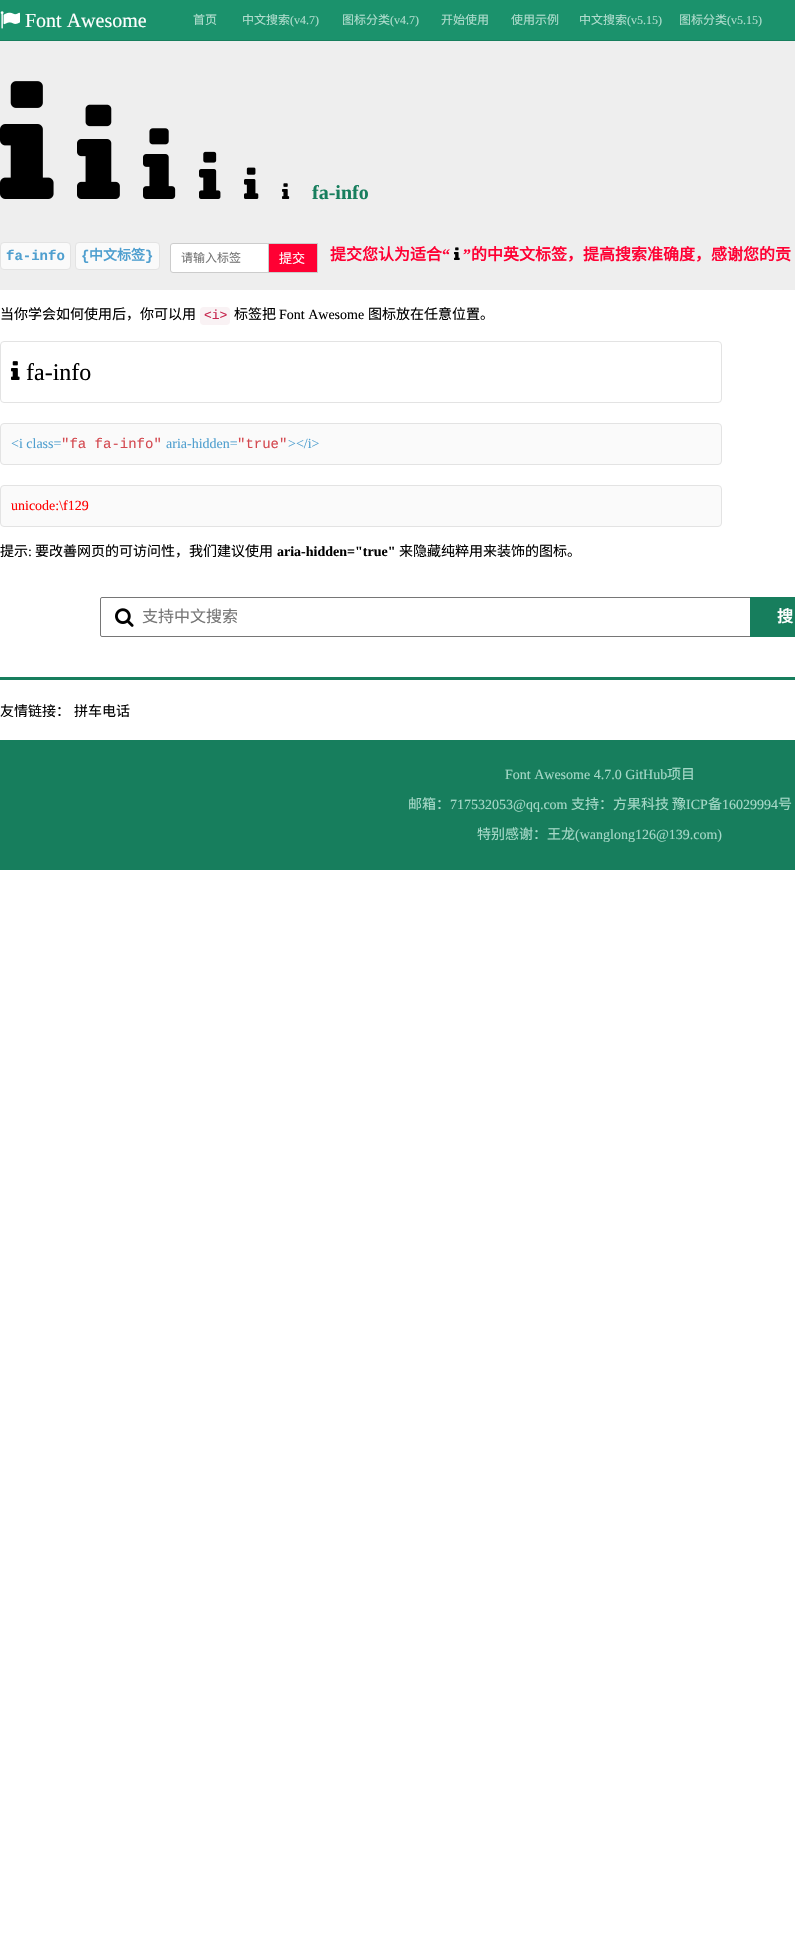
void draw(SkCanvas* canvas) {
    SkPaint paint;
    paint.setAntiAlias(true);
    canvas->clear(0xFFFFFFFF);
    paint.setColor(0xFF1B926C);
    canvas->drawRect(SkRect::MakeXYWH(0, 0, 795, 40), paint);
    paint.setColor(0xFF177E5D);
    canvas->drawRect(SkRect::MakeXYWH(0, 40, 795, 1), paint);
    canvas->drawImageRect(SkImages::DeferredFromEncodedData(SkData::MakeFromFileName("img1.png")), SkRect::MakeXYWH(0, 11, 20, 18), SkSamplingOptions());
    SkFont font1(fontMgr->matchFamilyStyle("Liberation Serif", SkFontStyle::Normal()), 20);
    font1.setSubpixel(true);
    paint.setColor(0xFFFFFFFF);
    canvas->drawString("Font Awesome", 25, 27, font1, paint);
    SkFont font2(fontMgr->matchFamilyStyle("Noto Sans CJK SC", SkFontStyle::Normal()), 12);
    font2.setSubpixel(true);
    paint.setColor(0xFFB0DDCE);
    canvas->drawString("首页", 193, 24, font2, paint);
    canvas->drawString("中文搜索", 242, 24, font2, paint);
    SkFont font3(fontMgr->matchFamilyStyle("Liberation Serif", SkFontStyle::Normal()), 12);
    font3.setSubpixel(true);
    canvas->drawString("(v4.7)", 290, 24, font3, paint);
    canvas->drawString("图标分类", 342, 24, font2, paint);
    canvas->drawString("(v4.7)", 390, 24, font3, paint);
    canvas->drawString("开始使用", 441, 24, font2, paint);
    canvas->drawString("使用示例", 511, 24, font2, paint);
    canvas->drawString("中文搜索", 579, 24, font2, paint);
    canvas->drawString("(v5.15)", 627, 24, font3, paint);
    canvas->drawString("图标分类", 679, 24, font2, paint);
    canvas->drawString("(v5.15)", 727, 24, font3, paint);
    paint.setColor(0xFFEEEEEE);
    canvas->drawRect(SkRect::MakeXYWH(0, 41, 795, 249), paint);
    canvas->drawImageRect(SkImages::DeferredFromEncodedData(SkData::MakeFromFileName("img2.png")), SkRect::MakeXYWH(0, 81, 54, 118), SkSamplingOptions());
    canvas->drawImageRect(SkImages::DeferredFromEncodedData(SkData::MakeFromFileName("img3.png")), SkRect::MakeXYWH(77, 104, 43, 95), SkSamplingOptions());
    canvas->drawImageRect(SkImages::DeferredFromEncodedData(SkData::MakeFromFileName("img4.png")), SkRect::MakeXYWH(143, 128, 33, 71), SkSamplingOptions());
    canvas->drawImageRect(SkImages::DeferredFromEncodedData(SkData::MakeFromFileName("img5.png")), SkRect::MakeXYWH(199, 151, 22, 48), SkSamplingOptions());
    canvas->drawImageRect(SkImages::DeferredFromEncodedData(SkData::MakeFromFileName("img6.png")), SkRect::MakeXYWH(244, 167, 15, 32), SkSamplingOptions());
    canvas->drawImageRect(SkImages::DeferredFromEncodedData(SkData::MakeFromFileName("img7.png")), SkRect::MakeXYWH(282, 183, 8, 16), SkSamplingOptions());
    SkFont font4(fontMgr->matchFamilyStyle("Liberation Serif", SkFontStyle::Bold()), 20);
    font4.setSubpixel(true);
    paint.setColor(0xFF177E5D);
    canvas->drawString("fa-info", 312, 199, font4, paint);
    paint.setColor(0xFFFAFAFA);
    canvas->drawRoundRect(SkRect::MakeXYWH(0.5f, 242.5f, 70, 27), 3.5f, 3.5f, paint);
    paint.setStyle(SkPaint::kStroke_Style);
    paint.setStrokeWidth(1);
    paint.setColor(0xFFE3E3E3);
    canvas->drawRoundRect(SkRect::MakeXYWH(0.5f, 242.5f, 70, 27), 3.5f, 3.5f, paint);
    SkFont font5(fontMgr->matchFamilyStyle("Liberation Mono", SkFontStyle::Bold()), 14);
    font5.setSubpixel(true);
    paint.setStyle(SkPaint::kFill_Style);
    paint.setColor(0xFF4F9FCF);
    canvas->drawString("fa-info", 6, 260, font5, paint);
    paint.setColor(0xFFFAFAFA);
    canvas->drawRoundRect(SkRect::MakeXYWH(75.5f, 242.5f, 84, 27), 3.5f, 3.5f, paint);
    paint.setStyle(SkPaint::kStroke_Style);
    paint.setColor(0xFFE3E3E3);
    canvas->drawRoundRect(SkRect::MakeXYWH(75.5f, 242.5f, 84, 27), 3.5f, 3.5f, paint);
    paint.setStyle(SkPaint::kFill_Style);
    paint.setColor(0xFF4F9FCF);
    canvas->drawString("{", 81, 260, font5, paint);
    SkFont font6(fontMgr->matchFamilyStyle("Noto Sans CJK SC", SkFontStyle::Bold()), 14);
    font6.setSubpixel(true);
    canvas->drawString("中文标签", 89, 260, font6, paint);
    canvas->drawString("}", 145, 260, font5, paint);
    paint.setColor(0xFFFFFFFF);
    canvas->drawRoundRect(SkRect::MakeXYWH(170.5f, 243.5f, 99, 29), 2.5f, 2.5f, paint);
    paint.setStyle(SkPaint::kStroke_Style);
    paint.setColor(0xFFCCCCCC);
    canvas->drawRoundRect(SkRect::MakeXYWH(170.5f, 243.5f, 99, 29), 2.5f, 2.5f, paint);
    paint.setStyle(SkPaint::kFill_Style);
    paint.setColor(0xFF757575);
    canvas->drawString("请输入标签", 181, 262, font2, paint);
    paint.setColor(0xFFFF0033);
    canvas->drawRect(SkRect::MakeXYWH(268.5f, 243.5f, 49, 29), paint);
    paint.setStyle(SkPaint::kStroke_Style);
    paint.setColor(0xFFCCCCCC);
    canvas->drawRect(SkRect::MakeXYWH(268.5f, 243.5f, 49, 29), paint);
    SkFont font7(fontMgr->matchFamilyStyle("Noto Sans CJK SC", SkFontStyle::Normal()), 13);
    font7.setSubpixel(true);
    paint.setStyle(SkPaint::kFill_Style);
    paint.setColor(0xFFFFFFFF);
    canvas->drawString("提交", 279, 263, font7, paint);
    SkFont font8(fontMgr->matchFamilyStyle("Noto Sans CJK SC", SkFontStyle::Bold()), 16);
    font8.setSubpixel(true);
    paint.setColor(0xFFFF0033);
    canvas->drawString("提交您认为适合", 330, 260, font8, paint);
    SkFont font9(fontMgr->matchFamilyStyle("Liberation Serif", SkFontStyle::Bold()), 16);
    font9.setSubpixel(true);
    canvas->drawString("“", 442, 260, font9, paint);
    canvas->drawImageRect(SkImages::DeferredFromEncodedData(SkData::MakeFromFileName("img8.png")), SkRect::MakeXYWH(454, 247, 6, 13), SkSamplingOptions());
    canvas->drawString("”", 463, 260, font9, paint);
    canvas->drawString("的中英文标签，提高搜索准确度，感谢您的贡", 471, 260, font8, paint);
    SkFont font10(fontMgr->matchFamilyStyle("Noto Sans CJK SC", SkFontStyle::Normal()), 14);
    font10.setSubpixel(true);
    paint.setColor(0xFF000000);
    canvas->drawString("当你学会如何使用后，你可以用", 0, 319, font10, paint);
    paint.setColor(0xFFF9F2F4);
    canvas->drawRoundRect(SkRect::MakeXYWH(200, 307, 30, 18), 4, 4, paint);
    SkFont font11(fontMgr->matchFamilyStyle("Liberation Mono", SkFontStyle::Normal()), 13);
    font11.setSubpixel(true);
    paint.setColor(0xFFC7254E);
    canvas->drawString("<i>", 204, 319, font11, paint);
    paint.setColor(0xFF000000);
    canvas->drawString("标签把", 234, 319, font10, paint);
    SkFont font12(fontMgr->matchFamilyStyle("Liberation Serif", SkFontStyle::Normal()), 14);
    font12.setSubpixel(true);
    canvas->drawString("Font Awesome", 279, 319, font12, paint);
    canvas->drawString("图标放在任意位置。", 368, 319, font10, paint);
    paint.setStyle(SkPaint::kStroke_Style);
    paint.setColor(0xFFE3E3E3);
    canvas->drawRoundRect(SkRect::MakeXYWH(0.5f, 341.5f, 721, 61), 3.5f, 3.5f, paint);
    canvas->drawImageRect(SkImages::DeferredFromEncodedData(SkData::MakeFromFileName("img9.png")), SkRect::MakeXYWH(11, 361, 9, 19), SkSamplingOptions());
    SkFont font13(fontMgr->matchFamilyStyle("Liberation Serif", SkFontStyle::Normal()), 24);
    font13.setSubpixel(true);
    paint.setStyle(SkPaint::kFill_Style);
    paint.setColor(0xFF000000);
    canvas->drawString("fa-info", 26, 380, font13, paint);
    paint.setColor(0xFFFAFAFA);
    canvas->drawRoundRect(SkRect::MakeXYWH(0.5f, 423.5f, 721, 41), 3.5f, 3.5f, paint);
    paint.setStyle(SkPaint::kStroke_Style);
    paint.setColor(0xFFE3E3E3);
    canvas->drawRoundRect(SkRect::MakeXYWH(0.5f, 423.5f, 721, 41), 3.5f, 3.5f, paint);
    paint.setStyle(SkPaint::kFill_Style);
    paint.setColor(0xFF4F9FCF);
    canvas->drawString("<i class=", 11, 448, font12, paint);
    SkFont font14(fontMgr->matchFamilyStyle("Liberation Mono", SkFontStyle::Normal()), 14);
    font14.setSubpixel(true);
    paint.setColor(0xFFD44950);
    canvas->drawString("\"fa fa-info\"", 61, 448, font14, paint);
    paint.setColor(0xFF4F9FCF);
    canvas->drawString("aria-hidden=", 166, 448, font12, paint);
    paint.setColor(0xFFD44950);
    canvas->drawString("\"true\"", 237, 448, font14, paint);
    paint.setColor(0xFF4F9FCF);
    canvas->drawString("></i>", 288, 448, font12, paint);
    paint.setColor(0xFFFAFAFA);
    canvas->drawRoundRect(SkRect::MakeXYWH(0.5f, 485.5f, 721, 41), 3.5f, 3.5f, paint);
    paint.setStyle(SkPaint::kStroke_Style);
    paint.setColor(0xFFE3E3E3);
    canvas->drawRoundRect(SkRect::MakeXYWH(0.5f, 485.5f, 721, 41), 3.5f, 3.5f, paint);
    paint.setStyle(SkPaint::kFill_Style);
    paint.setColor(0xFFFF0000);
    canvas->drawString("unicode:\\f129", 11, 510, font12, paint);
    paint.setColor(0xFF000000);
    canvas->drawString("提示", 0, 556, font10, paint);
    canvas->drawString(":", 28, 556, font12, paint);
    canvas->drawString("要改善网页的可访问性，我们建议使用", 35, 556, font10, paint);
    SkFont font15(fontMgr->matchFamilyStyle("Liberation Serif", SkFontStyle::Bold()), 14);
    font15.setSubpixel(true);
    canvas->drawString("aria-hidden=\"true\"", 277, 556, font15, paint);
    canvas->drawString("来隐藏纯粹用来装饰的图标。", 399, 556, font10, paint);
    paint.setColor(0xFF177E5D);
    canvas->drawRect(SkRect::MakeXYWH(0, 677, 795, 3), paint);
    paint.setStyle(SkPaint::kStroke_Style);
    paint.setColor(0xFF767676);
    canvas->drawRoundRect(SkRect::MakeXYWH(100.5f, 597.5f, 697, 39), 1.5f, 1.5f, paint);
    canvas->drawImageRect(SkImages::DeferredFromEncodedData(SkData::MakeFromFileName("img10.png")), SkRect::MakeXYWH(115, 608, 19, 19), SkSamplingOptions());
    SkFont font16(fontMgr->matchFamilyStyle("Noto Sans CJK SC", SkFontStyle::Normal()), 16);
    font16.setSubpixel(true);
    paint.setStyle(SkPaint::kFill_Style);
    paint.setColor(0xFF757575);
    canvas->drawString("支持中文搜索", 142, 622, font16, paint);
    paint.setColor(0xFF177E5D);
    canvas->drawRect(SkRect::MakeXYWH(750, 597, 45, 40), paint);
    paint.setColor(0xFFFFFFFF);
    canvas->drawString("搜", 777, 622, font8, paint);
    paint.setColor(0xFF000000);
    canvas->drawString("友情链接：", 0, 716, font10, paint);
    canvas->drawString("拼车电话", 74, 716, font10, paint);
    paint.setColor(0xFF177E5D);
    canvas->drawRect(SkRect::MakeXYWH(0, 740, 795, 130), paint);
    paint.setColor(0xFFA5D8C7);
    canvas->drawString("Font Awesome 4.7.0 GitHub", 505, 779, font12, paint);
    canvas->drawString("项目", 667, 779, font10, paint);
    canvas->drawString("邮箱：", 408, 809, font10, paint);
    canvas->drawString("717532053@qq.com", 450, 809, font12, paint);
    canvas->drawString("支持：方果科技", 571, 809, font10, paint);
    canvas->drawString("豫", 672, 809, font10, paint);
    canvas->drawString("ICP", 686, 809, font12, paint);
    canvas->drawString("备", 708, 809, font10, paint);
    canvas->drawString("16029994", 722, 809, font12, paint);
    canvas->drawString("号", 778, 809, font10, paint);
    canvas->drawString("特别感谢：王龙", 477, 839, font10, paint);
    canvas->drawString("(wanglong126@139.com)", 575, 839, font12, paint);
}
